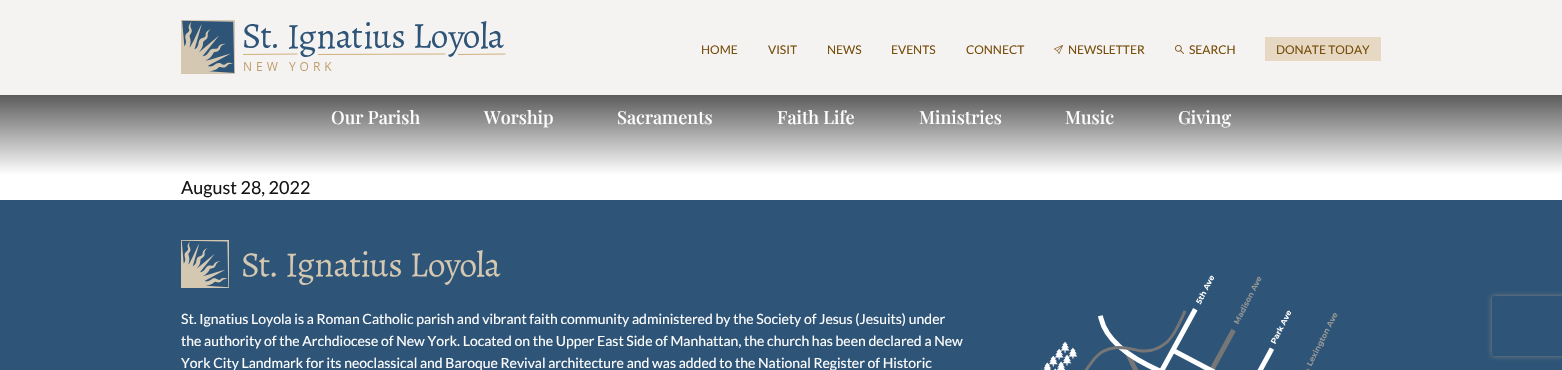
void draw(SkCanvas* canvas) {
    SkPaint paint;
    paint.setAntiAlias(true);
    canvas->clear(0xFFFFFFFF);
    paint.setColor(0xFFF5F2F2);
    canvas->drawRect(SkRect::MakeXYWH(0, 0, 1562, 95), paint);
    canvas->drawImageRect(SkImages::DeferredFromEncodedData(SkData::MakeFromFileName("img1.png")), SkRect::MakeXYWH(181, 20, 325, 54), SkSamplingOptions());
    SkFont font1(fontMgr->matchFamilyStyle("Lato", SkFontStyle::Normal()), 12);
    font1.setSubpixel(true);
    paint.setColor(0xFF774F0B);
    canvas->drawString("HOME", 701, 54, font1, paint);
    canvas->drawString("VISIT", 768, 54, font1, paint);
    canvas->drawString("NEWS", 827, 54, font1, paint);
    canvas->drawString("EVENTS", 891, 54, font1, paint);
    canvas->drawString("CONNECT", 966, 54, font1, paint);
    canvas->drawImageRect(SkImages::DeferredFromEncodedData(SkData::MakeFromFileName("img2.png")), SkRect::MakeXYWH(1054, 45, 9, 9), SkSamplingOptions());
    canvas->drawString("NEWSLETTER", 1068, 54, font1, paint);
    canvas->drawImageRect(SkImages::DeferredFromEncodedData(SkData::MakeFromFileName("img3.png")), SkRect::MakeXYWH(1175, 45, 9, 9), SkSamplingOptions());
    canvas->drawString("SEARCH", 1189, 54, font1, paint);
    paint.setColor(0xFFE6D8C3);
    canvas->drawRect(SkRect::MakeXYWH(1265, 37, 116, 24), paint);
    paint.setColor(0xFF774F0B);
    canvas->drawString("DONATE TODAY", 1276, 54, font1, paint);
    {
        const SkColor colors[] = {0xFF5C5C5C, 0xFFFFFFFF};
        const float stops[] = {0, 1};
        const SkPoint ends[] = {{781, 95}, {781, 175}};
        paint.setShader(SkGradientShader::MakeLinear(ends, colors, stops, 2, SkTileMode::kClamp));
        paint.setAlpha(255);
    }
    canvas->drawRect(SkRect::MakeXYWH(0, 95, 1562, 79), paint);
    SkFont font2(fontMgr->matchFamilyStyle("Playfair Display", SkFontStyle(500, SkFontStyle::kNormal_Width, SkFontStyle::kUpright_Slant)), 18);
    font2.setSubpixel(true);
    paint.setShader(nullptr);
    paint.setColor(0xFFFFFFFF);
    canvas->drawString("Our Parish", 331, 124, font2, paint);
    canvas->drawString("Worship", 484, 124, font2, paint);
    canvas->drawString("Sacraments", 617, 124, font2, paint);
    canvas->drawString("Faith Life", 777, 124, font2, paint);
    canvas->drawString("Ministries", 919, 124, font2, paint);
    canvas->drawString("Music", 1065, 124, font2, paint);
    canvas->drawString("Giving", 1178, 124, font2, paint);
    SkFont font3(fontMgr->matchFamilyStyle("Lato", SkFontStyle::Normal()), 18);
    font3.setSubpixel(true);
    paint.setColor(0xFF161616);
    canvas->drawString("August 28, 2022", 181, 194, font3, paint);
    paint.setColor(0xFF2E5577);
    canvas->drawRect(SkRect::MakeXYWH(0, 200, 1562, 170), paint);
    canvas->drawImageRect(SkImages::DeferredFromEncodedData(SkData::MakeFromFileName("img4.png")), SkRect::MakeXYWH(181, 240, 320, 48), SkSamplingOptions());
    SkFont font4(fontMgr->matchFamilyStyle("Lato", SkFontStyle::Normal()), 14);
    font4.setSubpixel(true);
    paint.setColor(0xFFFFFFFF);
    canvas->drawString("St. Ignatius Loyola is a Roman Catholic parish and vibrant faith community administered by the Society of Jesus (Jesuits) under", 181, 324, font4, paint);
    canvas->drawString("the authority of the Archdiocese of New York. Located on the Upper East Side of Manhattan, the church has been declared a New", 181, 346, font4, paint);
    canvas->drawString("York City Landmark for its neoclassical and Baroque Revival architecture and was added to the National Register of Historic", 181, 368, font4, paint);
    canvas->drawImageRect(SkImages::DeferredFromEncodedData(SkData::MakeFromFileName("img5.png")), SkRect::MakeXYWH(1041, 275, 297, 95), SkSamplingOptions());
    canvas->save();
    canvas->clipPath(SkPathBuilder(SkPathFillType::kEvenOdd).moveTo(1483, 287).lineTo(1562, 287).lineTo(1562, 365).lineTo(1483, 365).close().moveTo(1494, 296).lineTo(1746, 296).cubicTo(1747, 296, 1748, 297, 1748, 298).lineTo(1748, 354).cubicTo(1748, 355, 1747, 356, 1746, 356).lineTo(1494, 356).cubicTo(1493, 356, 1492, 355, 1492, 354).lineTo(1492, 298).cubicTo(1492, 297, 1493, 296, 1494, 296).close().detach(), true);
    paint.setColor(0xFF808080);
    paint.setMaskFilter(SkMaskFilter::MakeBlur(kNormal_SkBlurStyle, 2.5f));
    canvas->drawRoundRect(SkRect::MakeXYWH(1492, 296, 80, 60), 2, 2, paint);
    paint.setMaskFilter(nullptr);
    canvas->restore();
}
